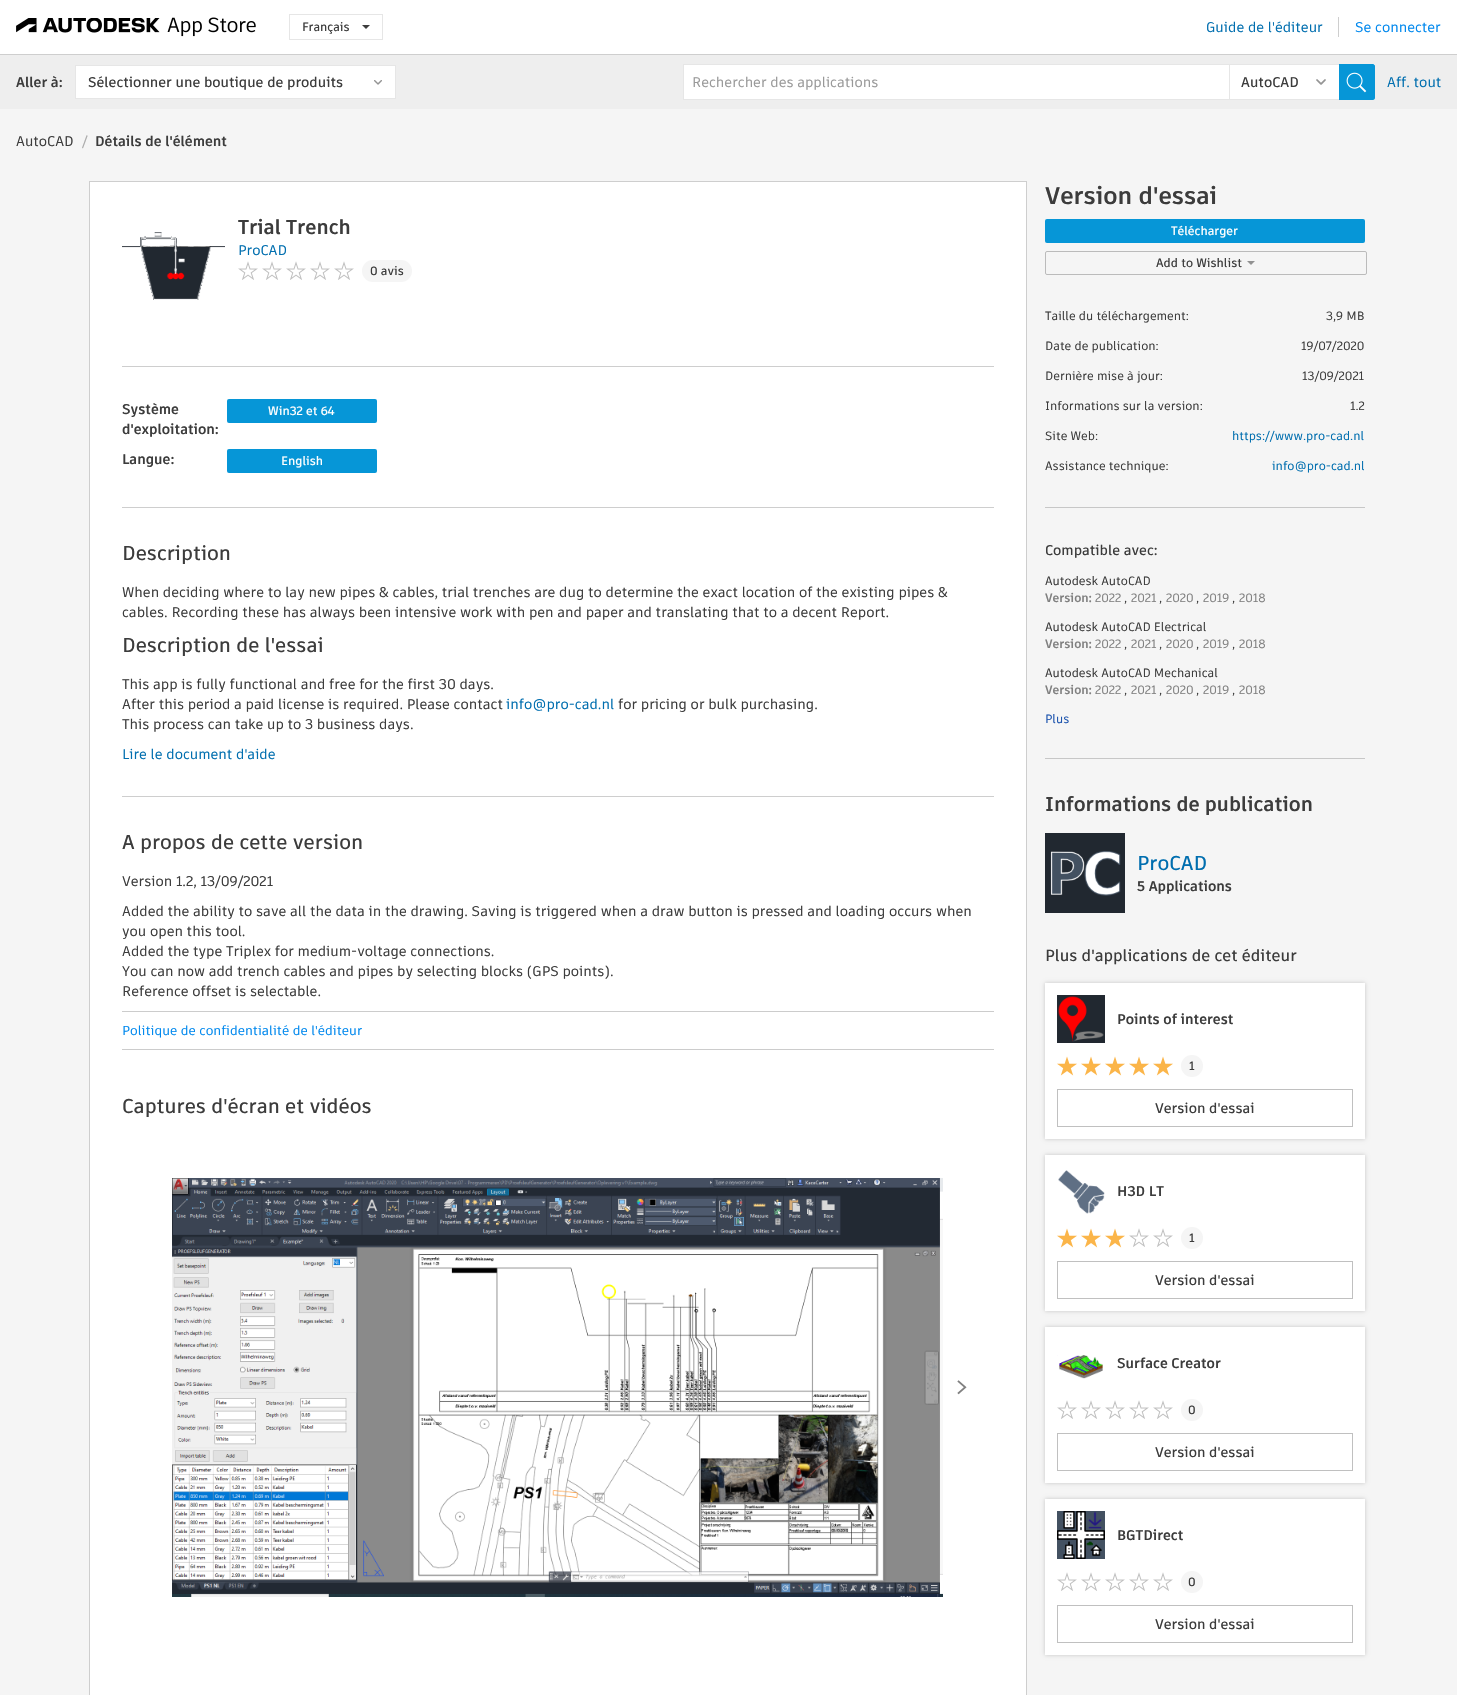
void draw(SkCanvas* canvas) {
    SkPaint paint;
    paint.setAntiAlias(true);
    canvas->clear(0xFFF5F5F5);
    paint.setColor(0xFFFFFFFF);
    canvas->drawRect(SkRect::MakeXYWH(0, 0, 1457, 54), paint);
    paint.setColor(0xFFCECECE);
    canvas->drawRect(SkRect::MakeXYWH(0, 54, 1457, 1), paint);
    canvas->drawImageRect(SkImages::DeferredFromEncodedData(SkData::MakeFromFileName("img1.png")), SkRect::MakeXYWH(16, 17, 240, 20), SkSamplingOptions());
    paint.setStyle(SkPaint::kStroke_Style);
    paint.setStrokeWidth(1);
    paint.setColor(0xFFE6E6E6);
    canvas->drawRect(SkRect::MakeXYWH(289.5f, 14.5f, 93, 25), paint);
    SkFont font1(fontMgr->matchFamilyStyle("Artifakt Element", SkFontStyle(600, SkFontStyle::kNormal_Width, SkFontStyle::kUpright_Slant)), 12);
    font1.setSubpixel(true);
    paint.setStyle(SkPaint::kFill_Style);
    paint.setColor(0xFF3C3C3C);
    canvas->drawString("Français", 302, 31, font1, paint);
    canvas->drawPath(SkPathBuilder().moveTo(362, 25).lineTo(370, 25).lineTo(366, 29).close().detach(), paint);
    paint.setColor(0xFFCECECE);
    canvas->drawRect(SkRect::MakeXYWH(1338, 17, 1, 20), paint);
    SkFont font2(fontMgr->matchFamilyStyle("Artifakt Element", SkFontStyle(500, SkFontStyle::kNormal_Width, SkFontStyle::kUpright_Slant)), 14);
    font2.setSubpixel(true);
    paint.setColor(0xFF006EAF);
    canvas->drawString("Guide de l'éditeur", 1206, 32, font2, paint);
    paint.setColor(0xFF0088EE);
    canvas->drawString("Se connecter", 1355, 32, font2, paint);
    paint.setColor(0xFFEEEEEE);
    canvas->drawRect(SkRect::MakeXYWH(0, 55, 1457, 54), paint);
    SkFont font3(fontMgr->matchFamilyStyle("Artifakt Element", SkFontStyle::Bold()), 14);
    font3.setSubpixel(true);
    paint.setColor(0xFF3C3C3C);
    canvas->drawString("Aller à:", 16, 87, font3, paint);
    paint.setColor(0xFFFFFFFF);
    canvas->drawRect(SkRect::MakeXYWH(75.5f, 65.5f, 320, 33), paint);
    paint.setStyle(SkPaint::kStroke_Style);
    paint.setColor(0xFFE6E6E6);
    canvas->drawRect(SkRect::MakeXYWH(75.5f, 65.5f, 320, 33), paint);
    SkFont font4(fontMgr->matchFamilyStyle("Artifakt Element", SkFontStyle(600, SkFontStyle::kNormal_Width, SkFontStyle::kUpright_Slant)), 14);
    font4.setSubpixel(true);
    paint.setStyle(SkPaint::kFill_Style);
    paint.setColor(0xFF3C3C3C);
    canvas->drawString("Sélectionner une boutique de produits", 88, 87, font4, paint);
    canvas->drawImageRect(SkImages::DeferredFromEncodedData(SkData::MakeFromFileName("img2.png")), SkRect::MakeXYWH(374, 80, 8, 5), SkSamplingOptions());
    paint.setColor(0xFFFFFFFF);
    canvas->drawRect(SkRect::MakeXYWH(1230, 64, 145, 36), paint);
    paint.setColor(0xFFE6E6E6);
    canvas->drawPath(SkPathBuilder().moveTo(1228, 64).lineTo(1339, 64).lineTo(1339, 65).lineTo(1229, 65).close().detach(), paint);
    canvas->drawPath(SkPathBuilder().moveTo(1339, 100).lineTo(1228, 100).lineTo(1229, 99).lineTo(1339, 99).close().detach(), paint);
    paint.setColor(0xFFFFFFFF);
    canvas->drawRect(SkRect::MakeXYWH(683.5f, 64.5f, 546, 35), paint);
    paint.setStyle(SkPaint::kStroke_Style);
    paint.setColor(0xFFE6E6E6);
    canvas->drawRect(SkRect::MakeXYWH(683.5f, 64.5f, 546, 35), paint);
    paint.setStyle(SkPaint::kFill_Style);
    paint.setColor(0xFF999999);
    canvas->drawString("Rechercher des applications", 692, 87, font2, paint);
    paint.setColor(0xFF3C3C3C);
    canvas->drawString("AutoCAD", 1241, 87, font4, paint);
    canvas->drawImageRect(SkImages::DeferredFromEncodedData(SkData::MakeFromFileName("img3.png")), SkRect::MakeXYWH(1316, 79, 10, 6), SkSamplingOptions());
    paint.setColor(0xFF0696D7);
    canvas->drawPath(SkPathBuilder().moveTo(1339, 64).lineTo(1373, 64).cubicTo(1374, 64, 1375, 65, 1375, 66).lineTo(1375, 98).cubicTo(1375, 99, 1374, 100, 1373, 100).lineTo(1339, 100).close().detach(), paint);
    canvas->drawImageRect(SkImages::DeferredFromEncodedData(SkData::MakeFromFileName("img4.png")), SkRect::MakeXYWH(1346, 72, 21, 21), SkSamplingOptions());
    paint.setColor(0xFF006EAF);
    canvas->drawString("Aff. tout", 1387, 87, font2, paint);
    paint.setColor(0xFF3C3C3C);
    canvas->drawString("AutoCAD", 16, 146, font2, paint);
    paint.setColor(0xFFABABAB);
    canvas->drawString("/", 82, 146, font2, paint);
    paint.setColor(0xFF3C3C3C);
    canvas->drawString("Détails de l'élément", 95, 146, font3, paint);
    paint.setColor(0xFFFFFFFF);
    canvas->drawRect(SkRect::MakeXYWH(89.5f, 181.5f, 937, 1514), paint);
    paint.setStyle(SkPaint::kStroke_Style);
    paint.setColor(0xFFCECECE);
    canvas->drawRect(SkRect::MakeXYWH(89.5f, 181.5f, 937, 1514), paint);
    paint.setStyle(SkPaint::kFill_Style);
    canvas->drawRect(SkRect::MakeXYWH(122, 366, 872, 1), paint);
    canvas->drawImageRect(SkImages::DeferredFromEncodedData(SkData::MakeFromFileName("img5.png")), SkRect::MakeXYWH(122, 232, 103, 68), SkSamplingOptions());
    SkFont font5(fontMgr->matchFamilyStyle("Artifakt Element", SkFontStyle::Bold()), 20);
    font5.setSubpixel(true);
    paint.setColor(0xFF3C3C3C);
    canvas->drawString("Trial Trench", 238, 234, font5, paint);
    paint.setColor(0xFF006EAF);
    canvas->drawString("ProCAD", 238, 255, font2, paint);
    canvas->drawImageRect(SkImages::DeferredFromEncodedData(SkData::MakeFromFileName("img6.png")), SkRect::MakeXYWH(238, 261, 20, 19), SkSamplingOptions());
    canvas->drawImageRect(SkImages::DeferredFromEncodedData(SkData::MakeFromFileName("img6.png")), SkRect::MakeXYWH(262, 261, 20, 19), SkSamplingOptions());
    canvas->drawImageRect(SkImages::DeferredFromEncodedData(SkData::MakeFromFileName("img6.png")), SkRect::MakeXYWH(286, 261, 20, 19), SkSamplingOptions());
    canvas->drawImageRect(SkImages::DeferredFromEncodedData(SkData::MakeFromFileName("img6.png")), SkRect::MakeXYWH(310, 261, 20, 19), SkSamplingOptions());
    canvas->drawImageRect(SkImages::DeferredFromEncodedData(SkData::MakeFromFileName("img6.png")), SkRect::MakeXYWH(334, 261, 20, 19), SkSamplingOptions());
    paint.setColor(0xFFF5F5F5);
    canvas->drawRoundRect(SkRect::MakeXYWH(362, 260, 50, 22), 11, 11, paint);
    paint.setColor(0xFF3C3C3C);
    canvas->drawString("0 avis", 370, 275, font1, paint);
    paint.setColor(0xFFCECECE);
    canvas->drawRect(SkRect::MakeXYWH(122, 507, 872, 1), paint);
    paint.setColor(0xFF3C3C3C);
    canvas->drawString("Système", 122, 414, font3, paint);
    canvas->drawString("d'exploitation:", 122, 434, font3, paint);
    paint.setColor(0xFF0696D7);
    canvas->drawRoundRect(SkRect::MakeXYWH(227, 399, 150, 24), 2, 2, paint);
    paint.setColor(0xFFFFFFFF);
    canvas->drawString("Win32 et 64", 268, 415, font1, paint);
    paint.setColor(0xFF3C3C3C);
    canvas->drawString("Langue:", 122, 464, font3, paint);
    paint.setColor(0xFF0696D7);
    canvas->drawRoundRect(SkRect::MakeXYWH(227, 449, 150, 24), 2, 2, paint);
    paint.setColor(0xFFFFFFFF);
    canvas->drawString("English", 281, 465, font1, paint);
    paint.setColor(0xFFCECECE);
    canvas->drawRect(SkRect::MakeXYWH(122, 796, 872, 1), paint);
    SkFont font6(fontMgr->matchFamilyStyle("Artifakt Element", SkFontStyle(600, SkFontStyle::kNormal_Width, SkFontStyle::kUpright_Slant)), 20);
    font6.setSubpixel(true);
    paint.setColor(0xFF3C3C3C);
    canvas->drawString("Description", 122, 560, font6, paint);
    canvas->drawString("When deciding where to lay new pipes & cables, trial trenches are dug to determine the exact location of the existing pipes &", 122, 597, font2, paint);
    canvas->drawString("cables. Recording these has always been intensive work with pen and paper and translating that to a decent Report.", 122, 617, font2, paint);
    canvas->drawString("Description de l'essai", 122, 652, font6, paint);
    canvas->drawString("This app is fully functional and free for the first 30 days.", 122, 689, font2, paint);
    canvas->drawString("After this period a paid license is required. Please contact", 122, 709, font2, paint);
    paint.setColor(0xFF006EAF);
    canvas->drawString("info@pro-cad.nl", 506, 709, font2, paint);
    paint.setColor(0xFF3C3C3C);
    canvas->drawString("for pricing or bulk purchasing.", 618, 709, font2, paint);
    canvas->drawString("This process can take up to 3 business days.", 122, 729, font2, paint);
    paint.setColor(0xFF006EAF);
    canvas->drawString("Lire le document d'aide", 122, 759, font2, paint);
    paint.setColor(0xFF3C3C3C);
    canvas->drawString("A propos de cette version", 122, 849, font6, paint);
    canvas->drawString("Version 1.2, 13/09/2021", 122, 886, font2, paint);
    canvas->drawString("Added the ability to save all the data in the drawing. Saving is triggered when a draw button is pressed and loading occurs when", 122, 916, font2, paint);
    canvas->drawString("you open this tool.", 122, 936, font2, paint);
    canvas->drawString("Added the type Triplex for medium-voltage connections.", 122, 956, font2, paint);
    canvas->drawString("You can now add trench cables and pipes by selecting blocks (GPS points).", 122, 976, font2, paint);
    canvas->drawString("Reference offset is selectable.", 122, 996, font2, paint);
    paint.setColor(0xFFCCCCCC);
    canvas->drawRect(SkRect::MakeXYWH(122, 1011, 872, 1), paint);
    SkFont font7(fontMgr->matchFamilyStyle("Artifakt Element", SkFontStyle(500, SkFontStyle::kNormal_Width, SkFontStyle::kUpright_Slant)), 13);
    font7.setSubpixel(true);
    paint.setColor(0xFF0088EE);
    canvas->drawString("Politique de confidentialité de l'éditeur", 122, 1035, font7, paint);
    paint.setColor(0xFFCCCCCC);
    canvas->drawRect(SkRect::MakeXYWH(122, 1049, 872, 1), paint);
    paint.setColor(0xFF3C3C3C);
    canvas->drawString("Captures d'écran et vidéos", 122, 1113, font6, paint);
    canvas->drawImageRect(SkImages::DeferredFromEncodedData(SkData::MakeFromFileName("img7.png")), SkRect::MakeXYWH(172, 1178, 771, 419), SkSamplingOptions());
    canvas->drawImageRect(SkImages::DeferredFromEncodedData(SkData::MakeFromFileName("img8.png")), SkRect::MakeXYWH(957, 1380, 10, 15), SkSamplingOptions());
    paint.setColor(0xFFC7C7C7);
    canvas->drawRect(SkRect::MakeXYWH(1045, 758, 320, 1), paint);
    SkFont font8(fontMgr->matchFamilyStyle("Artifakt Element", SkFontStyle::Bold()), 24);
    font8.setSubpixel(true);
    paint.setColor(0xFF3C3C3C);
    canvas->drawString("Version d'essai", 1045, 204, font8, paint);
    paint.setColor(0xFF0696D7);
    canvas->drawRoundRect(SkRect::MakeXYWH(1045, 219, 320, 24), 2, 2, paint);
    paint.setColor(0xFFFFFFFF);
    canvas->drawString("Télécharger", 1171, 235, font1, paint);
    paint.setStyle(SkPaint::kStroke_Style);
    paint.setColor(0xFFBBBBBB);
    canvas->drawRoundRect(SkRect::MakeXYWH(1045.5f, 251.5f, 321, 23), 1.5f, 1.5f, paint);
    paint.setStyle(SkPaint::kFill_Style);
    paint.setColor(0xFF3C3C3C);
    canvas->drawString("Add to Wishlist", 1156, 267, font1, paint);
    paint.setColor(0xFF919191);
    canvas->drawPath(SkPathBuilder().moveTo(1247, 261).lineTo(1255, 261).lineTo(1251, 265).close().detach(), paint);
    SkFont font9(fontMgr->matchFamilyStyle("Artifakt Element", SkFontStyle(500, SkFontStyle::kNormal_Width, SkFontStyle::kUpright_Slant)), 12);
    font9.setSubpixel(true);
    paint.setColor(0xFF3C3C3C);
    canvas->drawString("Taille du téléchargement:", 1045, 320, font9, paint);
    canvas->drawString("3,9 MB", 1326, 320, font9, paint);
    canvas->drawString("Date de publication:", 1045, 350, font9, paint);
    canvas->drawString("19/07/2020", 1301, 350, font9, paint);
    canvas->drawString("Dernière mise à jour:", 1045, 380, font9, paint);
    canvas->drawString("13/09/2021", 1302, 380, font9, paint);
    canvas->drawString("Informations sur la version:", 1045, 410, font9, paint);
    canvas->drawString("1.2", 1350, 410, font9, paint);
    canvas->drawString("Site Web:", 1045, 440, font9, paint);
    paint.setColor(0xFF006EAF);
    canvas->drawString("https://www.pro-cad.nl", 1232, 440, font9, paint);
    paint.setColor(0xFF3C3C3C);
    canvas->drawString("Assistance technique:", 1045, 470, font9, paint);
    paint.setColor(0xFF006EAF);
    canvas->drawString("info@pro-cad.nl", 1272, 470, font9, paint);
    paint.setColor(0xFFC7C7C7);
    canvas->drawRect(SkRect::MakeXYWH(1045, 507, 320, 1), paint);
    paint.setColor(0xFF3C3C3C);
    canvas->drawString("Compatible avec:", 1045, 555, font4, paint);
    canvas->drawString("Autodesk AutoCAD", 1045, 585, font9, paint);
    SkFont font10(fontMgr->matchFamilyStyle("Artifakt Element", SkFontStyle::Bold()), 12);
    font10.setSubpixel(true);
    paint.setColor(0xFF808080);
    canvas->drawString("Version:", 1045, 602, font10, paint);
    canvas->drawString("2022", 1095, 602, font9, paint);
    paint.setColor(0xFF3C3C3C);
    canvas->drawString(",", 1124, 602, font9, paint);
    paint.setColor(0xFF808080);
    canvas->drawString("2021", 1131, 602, font9, paint);
    paint.setColor(0xFF3C3C3C);
    canvas->drawString(",", 1159, 602, font9, paint);
    paint.setColor(0xFF808080);
    canvas->drawString("2020", 1166, 602, font9, paint);
    paint.setColor(0xFF3C3C3C);
    canvas->drawString(",", 1196, 602, font9, paint);
    paint.setColor(0xFF808080);
    canvas->drawString("2019", 1203, 602, font9, paint);
    paint.setColor(0xFF3C3C3C);
    canvas->drawString(",", 1232, 602, font9, paint);
    paint.setColor(0xFF808080);
    canvas->drawString("2018", 1239, 602, font9, paint);
    paint.setColor(0xFF3C3C3C);
    canvas->drawString("Autodesk AutoCAD Electrical", 1045, 631, font9, paint);
    paint.setColor(0xFF808080);
    canvas->drawString("Version:", 1045, 648, font10, paint);
    canvas->drawString("2022", 1095, 648, font9, paint);
    paint.setColor(0xFF3C3C3C);
    canvas->drawString(",", 1124, 648, font9, paint);
    paint.setColor(0xFF808080);
    canvas->drawString("2021", 1131, 648, font9, paint);
    paint.setColor(0xFF3C3C3C);
    canvas->drawString(",", 1159, 648, font9, paint);
    paint.setColor(0xFF808080);
    canvas->drawString("2020", 1166, 648, font9, paint);
    paint.setColor(0xFF3C3C3C);
    canvas->drawString(",", 1196, 648, font9, paint);
    paint.setColor(0xFF808080);
    canvas->drawString("2019", 1203, 648, font9, paint);
    paint.setColor(0xFF3C3C3C);
    canvas->drawString(",", 1232, 648, font9, paint);
    paint.setColor(0xFF808080);
    canvas->drawString("2018", 1239, 648, font9, paint);
    paint.setColor(0xFF3C3C3C);
    canvas->drawString("Autodesk AutoCAD Mechanical", 1045, 677, font9, paint);
    paint.setColor(0xFF808080);
    canvas->drawString("Version:", 1045, 694, font10, paint);
    canvas->drawString("2022", 1095, 694, font9, paint);
    paint.setColor(0xFF3C3C3C);
    canvas->drawString(",", 1124, 694, font9, paint);
    paint.setColor(0xFF808080);
    canvas->drawString("2021", 1131, 694, font9, paint);
    paint.setColor(0xFF3C3C3C);
    canvas->drawString(",", 1159, 694, font9, paint);
    paint.setColor(0xFF808080);
    canvas->drawString("2020", 1166, 694, font9, paint);
    paint.setColor(0xFF3C3C3C);
    canvas->drawString(",", 1196, 694, font9, paint);
    paint.setColor(0xFF808080);
    canvas->drawString("2019", 1203, 694, font9, paint);
    paint.setColor(0xFF3C3C3C);
    canvas->drawString(",", 1232, 694, font9, paint);
    paint.setColor(0xFF808080);
    canvas->drawString("2018", 1239, 694, font9, paint);
    paint.setColor(0xFF1A52AD);
    canvas->drawString("Plus", 1045, 723, font9, paint);
    paint.setColor(0xFF3C3C3C);
    canvas->drawString("Informations de publication", 1045, 811, font5, paint);
    canvas->drawImageRect(SkImages::DeferredFromEncodedData(SkData::MakeFromFileName("img9.png")), SkRect::MakeXYWH(1045, 833, 80, 80), SkSamplingOptions());
    paint.setColor(0xFF006EAF);
    canvas->drawString("ProCAD", 1137, 870, font6, paint);
    paint.setColor(0xFF3C3C3C);
    canvas->drawString("5 Applications", 1137, 891, font3, paint);
    SkFont font11(fontMgr->matchFamilyStyle("Artifakt Element", SkFontStyle(600, SkFontStyle::kNormal_Width, SkFontStyle::kUpright_Slant)), 16);
    font11.setSubpixel(true);
    canvas->drawString("Plus d'applications de cet éditeur", 1045, 961, font11, paint);
    paint.setColor(0x33000000);
    paint.setMaskFilter(SkMaskFilter::MakeBlur(kNormal_SkBlurStyle, 2));
    canvas->drawRect(SkRect::MakeXYWH(1045, 983, 320, 156), paint);
    paint.setMaskFilter(nullptr);
    paint.setColor(0xFFFFFFFF);
    canvas->drawRect(SkRect::MakeXYWH(1045, 983, 320, 156), paint);
    canvas->drawImageRect(SkImages::DeferredFromEncodedData(SkData::MakeFromFileName("img10.png")), SkRect::MakeXYWH(1057, 995, 48, 48), SkSamplingOptions());
    paint.setColor(0xFF3C3C3C);
    canvas->drawString("Points of interest", 1117, 1024, font3, paint);
    canvas->drawImageRect(SkImages::DeferredFromEncodedData(SkData::MakeFromFileName("img11.png")), SkRect::MakeXYWH(1057, 1056, 20, 20), SkSamplingOptions());
    canvas->drawImageRect(SkImages::DeferredFromEncodedData(SkData::MakeFromFileName("img11.png")), SkRect::MakeXYWH(1081, 1056, 20, 20), SkSamplingOptions());
    canvas->drawImageRect(SkImages::DeferredFromEncodedData(SkData::MakeFromFileName("img11.png")), SkRect::MakeXYWH(1105, 1056, 20, 20), SkSamplingOptions());
    canvas->drawImageRect(SkImages::DeferredFromEncodedData(SkData::MakeFromFileName("img11.png")), SkRect::MakeXYWH(1129, 1056, 20, 20), SkSamplingOptions());
    canvas->drawImageRect(SkImages::DeferredFromEncodedData(SkData::MakeFromFileName("img11.png")), SkRect::MakeXYWH(1153, 1056, 20, 20), SkSamplingOptions());
    paint.setColor(0xFFF5F5F5);
    canvas->drawCircle(1192, 1066, 11, paint);
    paint.setColor(0xFF3C3C3C);
    canvas->drawString("1", 1189, 1070, font1, paint);
    paint.setStyle(SkPaint::kStroke_Style);
    paint.setColor(0xFFC0C0C0);
    canvas->drawRect(SkRect::MakeXYWH(1057.5f, 1089.5f, 295, 37), paint);
    paint.setStyle(SkPaint::kFill_Style);
    paint.setColor(0xFF3C3C3C);
    canvas->drawString("Version d'essai", 1155, 1113, font4, paint);
    paint.setColor(0x33000000);
    paint.setMaskFilter(SkMaskFilter::MakeBlur(kNormal_SkBlurStyle, 2));
    canvas->drawRect(SkRect::MakeXYWH(1045, 1155, 320, 156), paint);
    paint.setMaskFilter(nullptr);
    paint.setColor(0xFFFFFFFF);
    canvas->drawRect(SkRect::MakeXYWH(1045, 1155, 320, 156), paint);
    canvas->drawImageRect(SkImages::DeferredFromEncodedData(SkData::MakeFromFileName("img12.png")), SkRect::MakeXYWH(1058, 1170, 47, 44), SkSamplingOptions());
    paint.setColor(0xFF3C3C3C);
    canvas->drawString("H3D LT", 1117, 1196, font3, paint);
    canvas->drawImageRect(SkImages::DeferredFromEncodedData(SkData::MakeFromFileName("img11.png")), SkRect::MakeXYWH(1057, 1228, 20, 20), SkSamplingOptions());
    canvas->drawImageRect(SkImages::DeferredFromEncodedData(SkData::MakeFromFileName("img11.png")), SkRect::MakeXYWH(1081, 1228, 20, 20), SkSamplingOptions());
    canvas->drawImageRect(SkImages::DeferredFromEncodedData(SkData::MakeFromFileName("img11.png")), SkRect::MakeXYWH(1105, 1228, 20, 20), SkSamplingOptions());
    canvas->drawImageRect(SkImages::DeferredFromEncodedData(SkData::MakeFromFileName("img6.png")), SkRect::MakeXYWH(1129, 1228, 20, 19), SkSamplingOptions());
    canvas->drawImageRect(SkImages::DeferredFromEncodedData(SkData::MakeFromFileName("img6.png")), SkRect::MakeXYWH(1153, 1228, 20, 19), SkSamplingOptions());
    paint.setColor(0xFFF5F5F5);
    canvas->drawCircle(1192, 1238, 11, paint);
    paint.setColor(0xFF3C3C3C);
    canvas->drawString("1", 1189, 1242, font1, paint);
    paint.setStyle(SkPaint::kStroke_Style);
    paint.setColor(0xFFC0C0C0);
    canvas->drawRect(SkRect::MakeXYWH(1057.5f, 1261.5f, 295, 37), paint);
    paint.setStyle(SkPaint::kFill_Style);
    paint.setColor(0xFF3C3C3C);
    canvas->drawString("Version d'essai", 1155, 1285, font4, paint);
    paint.setColor(0x33000000);
    paint.setMaskFilter(SkMaskFilter::MakeBlur(kNormal_SkBlurStyle, 2));
    canvas->drawRect(SkRect::MakeXYWH(1045, 1327, 320, 156), paint);
    paint.setMaskFilter(nullptr);
    paint.setColor(0xFFFFFFFF);
    canvas->drawRect(SkRect::MakeXYWH(1045, 1327, 320, 156), paint);
    canvas->drawImageRect(SkImages::DeferredFromEncodedData(SkData::MakeFromFileName("img13.png")), SkRect::MakeXYWH(1057, 1355, 46, 24), SkSamplingOptions());
    paint.setColor(0xFF3C3C3C);
    canvas->drawString("Surface Creator", 1117, 1368, font3, paint);
    canvas->drawImageRect(SkImages::DeferredFromEncodedData(SkData::MakeFromFileName("img6.png")), SkRect::MakeXYWH(1057, 1400, 20, 19), SkSamplingOptions());
    canvas->drawImageRect(SkImages::DeferredFromEncodedData(SkData::MakeFromFileName("img6.png")), SkRect::MakeXYWH(1081, 1400, 20, 19), SkSamplingOptions());
    canvas->drawImageRect(SkImages::DeferredFromEncodedData(SkData::MakeFromFileName("img6.png")), SkRect::MakeXYWH(1105, 1400, 20, 19), SkSamplingOptions());
    canvas->drawImageRect(SkImages::DeferredFromEncodedData(SkData::MakeFromFileName("img6.png")), SkRect::MakeXYWH(1129, 1400, 20, 19), SkSamplingOptions());
    canvas->drawImageRect(SkImages::DeferredFromEncodedData(SkData::MakeFromFileName("img6.png")), SkRect::MakeXYWH(1153, 1400, 20, 19), SkSamplingOptions());
    paint.setColor(0xFFF5F5F5);
    canvas->drawCircle(1192, 1410, 11, paint);
    paint.setColor(0xFF3C3C3C);
    canvas->drawString("0", 1188, 1414, font1, paint);
    paint.setStyle(SkPaint::kStroke_Style);
    paint.setColor(0xFFC0C0C0);
    canvas->drawRect(SkRect::MakeXYWH(1057.5f, 1433.5f, 295, 37), paint);
    paint.setStyle(SkPaint::kFill_Style);
    paint.setColor(0xFF3C3C3C);
    canvas->drawString("Version d'essai", 1155, 1457, font4, paint);
    paint.setColor(0x33000000);
    paint.setMaskFilter(SkMaskFilter::MakeBlur(kNormal_SkBlurStyle, 2));
    canvas->drawRect(SkRect::MakeXYWH(1045, 1499, 320, 156), paint);
    paint.setMaskFilter(nullptr);
    paint.setColor(0xFFFFFFFF);
    canvas->drawRect(SkRect::MakeXYWH(1045, 1499, 320, 156), paint);
    canvas->drawImageRect(SkImages::DeferredFromEncodedData(SkData::MakeFromFileName("img14.png")), SkRect::MakeXYWH(1057, 1511, 48, 48), SkSamplingOptions());
    paint.setColor(0xFF3C3C3C);
    canvas->drawString("BGTDirect", 1117, 1540, font3, paint);
    canvas->drawImageRect(SkImages::DeferredFromEncodedData(SkData::MakeFromFileName("img6.png")), SkRect::MakeXYWH(1057, 1572, 20, 19), SkSamplingOptions());
    canvas->drawImageRect(SkImages::DeferredFromEncodedData(SkData::MakeFromFileName("img6.png")), SkRect::MakeXYWH(1081, 1572, 20, 19), SkSamplingOptions());
    canvas->drawImageRect(SkImages::DeferredFromEncodedData(SkData::MakeFromFileName("img6.png")), SkRect::MakeXYWH(1105, 1572, 20, 19), SkSamplingOptions());
    canvas->drawImageRect(SkImages::DeferredFromEncodedData(SkData::MakeFromFileName("img6.png")), SkRect::MakeXYWH(1129, 1572, 20, 19), SkSamplingOptions());
    canvas->drawImageRect(SkImages::DeferredFromEncodedData(SkData::MakeFromFileName("img6.png")), SkRect::MakeXYWH(1153, 1572, 20, 19), SkSamplingOptions());
    paint.setColor(0xFFF5F5F5);
    canvas->drawCircle(1192, 1582, 11, paint);
    paint.setColor(0xFF3C3C3C);
    canvas->drawString("0", 1188, 1586, font1, paint);
    paint.setStyle(SkPaint::kStroke_Style);
    paint.setColor(0xFFC0C0C0);
    canvas->drawRect(SkRect::MakeXYWH(1057.5f, 1605.5f, 295, 37), paint);
    paint.setStyle(SkPaint::kFill_Style);
    paint.setColor(0xFF3C3C3C);
    canvas->drawString("Version d'essai", 1155, 1629, font4, paint);
}
